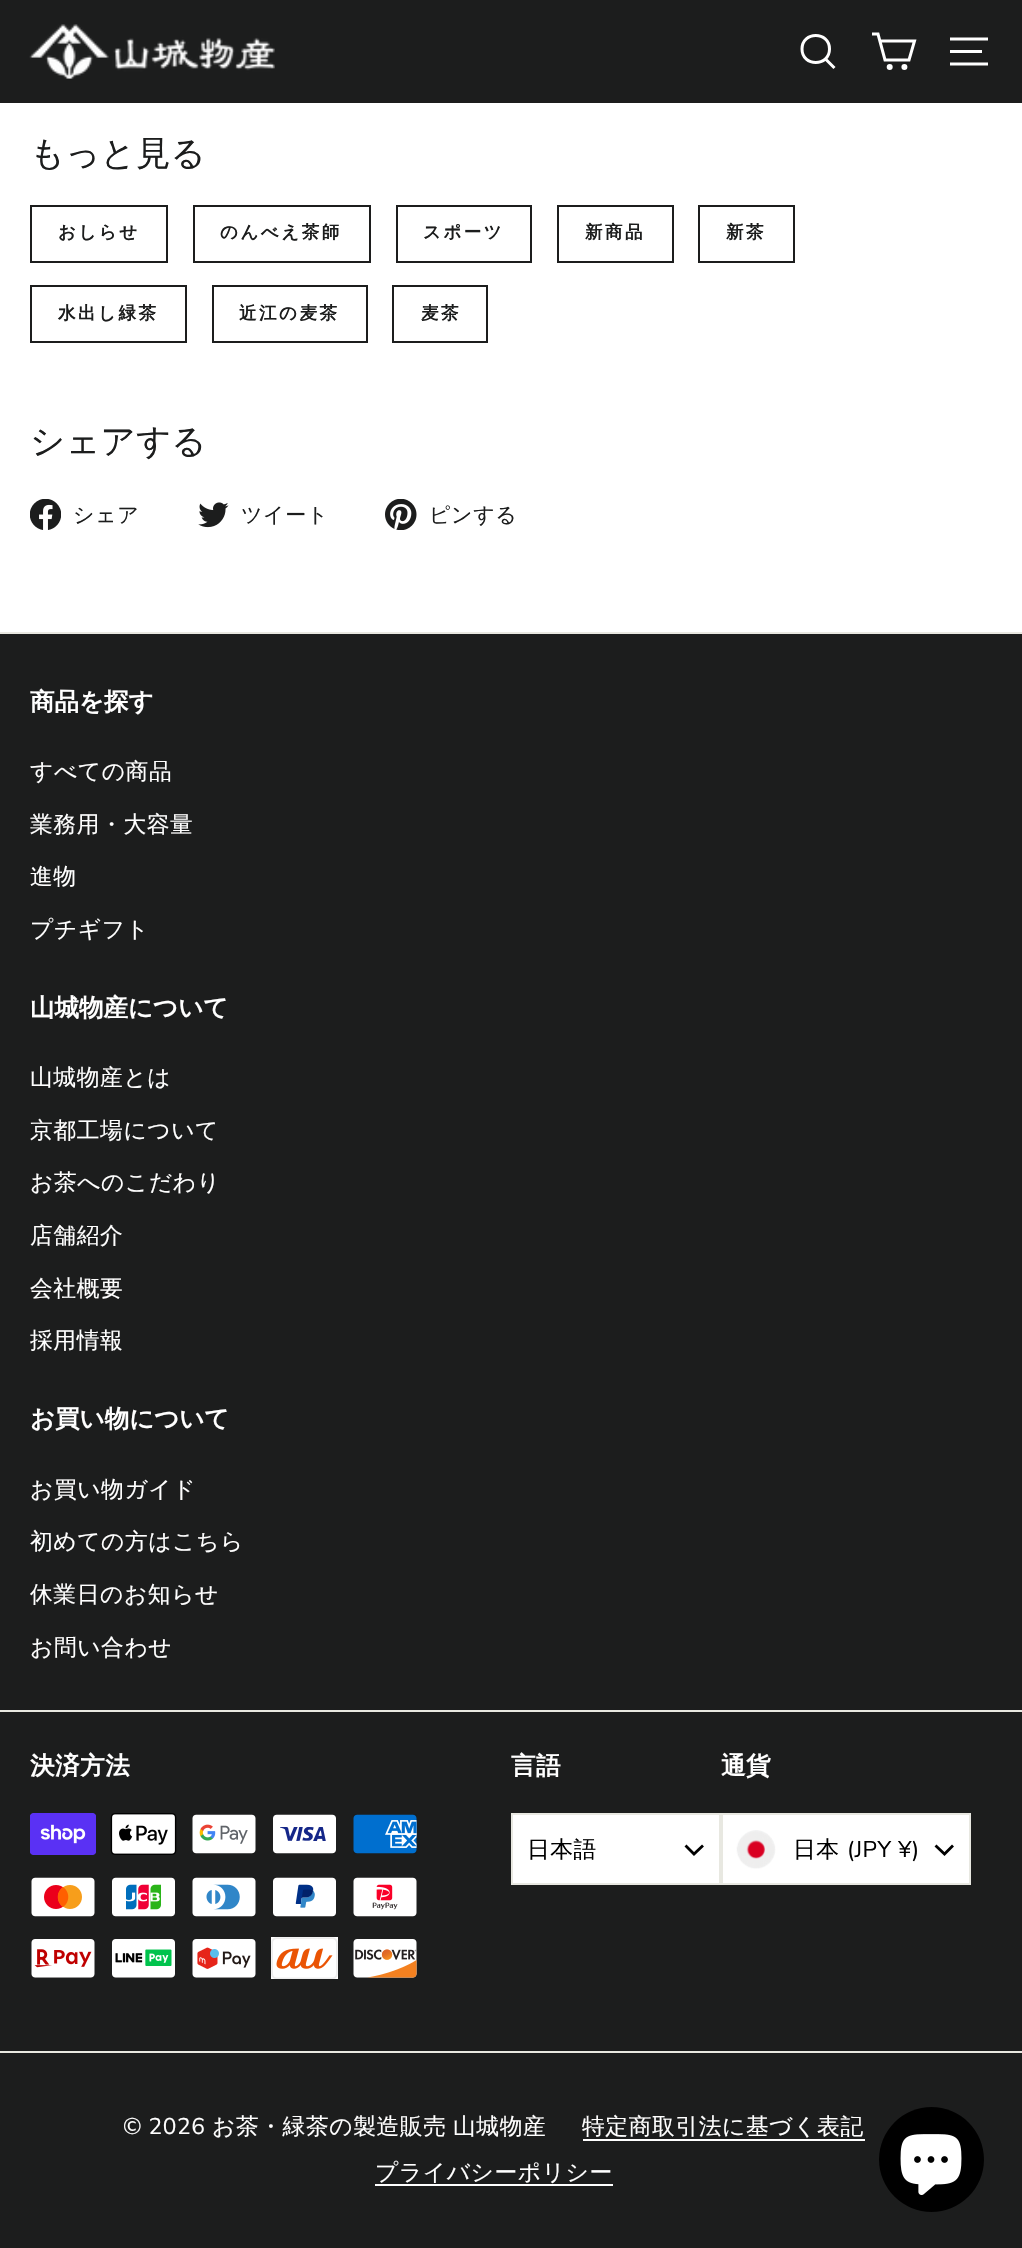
void draw(SkCanvas* canvas) {
    SkPaint paint;
    paint.setAntiAlias(true);
    auto spacedText = [&](const char* s, float x, float y, const SkFont& font, const SkPaint& ink, float letter, float word) {
        std::vector<SkGlyphID> glyphs(font.countText(s, strlen(s), SkTextEncoding::kUTF8));
        std::vector<float> xs(glyphs.size());
        font.textToGlyphs(s, strlen(s), SkTextEncoding::kUTF8, glyphs);
        font.getXPos(glyphs, xs, x);
        float extra = 0;
        for (size_t i = 0; i < glyphs.size(); i++) {
            xs[i] += extra;
            extra += letter + word * (glyphs[i] == font.unicharToGlyph(' '));
        }
        canvas->drawTextBlob(SkTextBlob::MakeFromPosHGlyphs(glyphs, xs, y, font), 0, 0, ink);
    };
    canvas->clear(0xFFFFFFFF);
    paint.setColor(0xFF1C1D1D);
    canvas->drawRect(SkRect::MakeXYWH(0, 0, 1022, 103), paint);
    canvas->drawImageRect(SkImages::DeferredFromEncodedData(SkData::MakeFromFileName("img1.png")), SkRect::MakeXYWH(29, 24, 246, 55), SkSamplingOptions());
    paint.setStyle(SkPaint::kStroke_Style);
    paint.setStrokeWidth(3);
    paint.setColor(0xFFFFFFFF);
    canvas->drawPath(SkPathBuilder().moveTo(829.5f, 49).cubicTo(829.5f, 67, 802, 67, 802, 49).cubicTo(802, 31, 829.5f, 31, 829.5f, 49).close().moveTo(834.5f, 68).lineTo(825.5f, 59).detach(), paint);
    canvas->drawPath(SkPathBuilder().moveTo(880, 41).lineTo(914.5f, 41).lineTo(909, 60).lineTo(885, 60).lineTo(878, 34).lineTo(872, 34).detach(), paint);
    canvas->drawCircle(889.7f, 67.1f, 1.5f, paint);
    canvas->drawCircle(904.4f, 67.1f, 1.5f, paint);
    canvas->drawPath(SkPathBuilder().moveTo(950, 39).lineTo(988, 39).detach(), paint);
    paint.setStyle(SkPaint::kFill_Style);
    canvas->drawRect(SkRect::MakeXYWH(950, 50, 32, 3), paint);
    paint.setStyle(SkPaint::kStroke_Style);
    canvas->drawPath(SkPathBuilder().moveTo(950, 64).lineTo(988, 64).detach(), paint);
    SkFont font1(fontMgr->matchFamilyStyle("WenQuanYi Zen Hei", SkFontStyle(500, SkFontStyle::kNormal_Width, SkFontStyle::kUpright_Slant)), 34.5f);
    font1.setSubpixel(true);
    paint.setStyle(SkPaint::kFill_Style);
    paint.setColor(0xFF1C1D1D);
    canvas->drawString("もっと見る", 30, 165, font1, paint);
    paint.setStyle(SkPaint::kStroke_Style);
    paint.setStrokeWidth(2);
    canvas->drawRect(SkRect::MakeXYWH(31, 206, 136, 56), paint);
    SkFont font2(fontMgr->matchFamilyStyle("WenQuanYi Zen Hei", SkFontStyle::Bold()), 17.5f);
    font2.setSubpixel(true);
    paint.setStyle(SkPaint::kFill_Style);
    spacedText("おしらせ", 58, 238, font2, paint, 2.5f, 0);
    paint.setStyle(SkPaint::kStroke_Style);
    canvas->drawRect(SkRect::MakeXYWH(194, 206, 176, 56), paint);
    paint.setStyle(SkPaint::kFill_Style);
    spacedText("のんべえ茶師", 220, 238, font2, paint, 2.5f, 0);
    paint.setStyle(SkPaint::kStroke_Style);
    canvas->drawRect(SkRect::MakeXYWH(397, 206, 134, 56), paint);
    paint.setStyle(SkPaint::kFill_Style);
    spacedText("スポーツ", 423, 238, font2, paint, 2.5f, 0);
    paint.setStyle(SkPaint::kStroke_Style);
    canvas->drawRect(SkRect::MakeXYWH(558, 206, 115, 56), paint);
    paint.setStyle(SkPaint::kFill_Style);
    spacedText("新商品", 585, 238, font2, paint, 2.5f, 0);
    paint.setStyle(SkPaint::kStroke_Style);
    canvas->drawRect(SkRect::MakeXYWH(699, 206, 95, 56), paint);
    paint.setStyle(SkPaint::kFill_Style);
    spacedText("新茶", 726, 238, font2, paint, 2.5f, 0);
    paint.setStyle(SkPaint::kStroke_Style);
    canvas->drawRect(SkRect::MakeXYWH(31, 286, 155, 56), paint);
    paint.setStyle(SkPaint::kFill_Style);
    spacedText("水出し緑茶", 58, 319, font2, paint, 2.5f, 0);
    paint.setStyle(SkPaint::kStroke_Style);
    canvas->drawRect(SkRect::MakeXYWH(213, 286, 154, 56), paint);
    paint.setStyle(SkPaint::kFill_Style);
    spacedText("近江の麦茶", 239, 319, font2, paint, 2.5f, 0);
    paint.setStyle(SkPaint::kStroke_Style);
    canvas->drawRect(SkRect::MakeXYWH(393, 286, 94, 56), paint);
    paint.setStyle(SkPaint::kFill_Style);
    spacedText("麦茶", 421, 319, font2, paint, 2.5f, 0);
    canvas->drawString("シェアする", 30, 453, font1, paint);
    canvas->drawImageRect(SkImages::DeferredFromEncodedData(SkData::MakeFromFileName("img2.png")), SkRect::MakeXYWH(30, 499, 31, 31), SkSamplingOptions());
    SkFont font3(fontMgr->matchFamilyStyle("WenQuanYi Zen Hei", SkFontStyle(500, SkFontStyle::kNormal_Width, SkFontStyle::kUpright_Slant)), 21);
    font3.setSubpixel(true);
    spacedText("シェア", 73, 522, font3, paint, 0.6f, 0);
    canvas->drawImageRect(SkImages::DeferredFromEncodedData(SkData::MakeFromFileName("img3.png")), SkRect::MakeXYWH(198, 502, 31, 26), SkSamplingOptions());
    spacedText("ツイート", 241, 522, font3, paint, 0.6f, 0);
    canvas->drawImageRect(SkImages::DeferredFromEncodedData(SkData::MakeFromFileName("img4.png")), SkRect::MakeXYWH(385, 499, 32, 31), SkSamplingOptions());
    spacedText("ピンする", 429, 522, font3, paint, 0.6f, 0);
    canvas->drawRect(SkRect::MakeXYWH(0, 634, 1022, 1614), paint);
    paint.setColor(0xFFE8E8E1);
    canvas->drawRect(SkRect::MakeXYWH(0, 632, 1022, 2), paint);
    SkFont font4(fontMgr->matchFamilyStyle("WenQuanYi Zen Hei", SkFontStyle::Bold()), 24.5f);
    font4.setSubpixel(true);
    paint.setColor(0xFFFFFFFF);
    canvas->drawString("商品を探す", 30, 710, font4, paint);
    SkFont font5(fontMgr->matchFamilyStyle("WenQuanYi Zen Hei", SkFontStyle(500, SkFontStyle::kNormal_Width, SkFontStyle::kUpright_Slant)), 22.75f);
    font5.setSubpixel(true);
    spacedText("すべての商品", 30, 779, font5, paint, 0.6f, 0);
    spacedText("業務用・大容量", 30, 832, font5, paint, 0.6f, 0);
    spacedText("進物", 30, 884, font5, paint, 0.6f, 0);
    spacedText("プチギフト", 30, 937, font5, paint, 0.6f, 0);
    canvas->drawString("山城物産について", 30, 1016, font4, paint);
    spacedText("山城物産とは", 30, 1085, font5, paint, 0.6f, 0);
    spacedText("京都工場について", 30, 1138, font5, paint, 0.6f, 0);
    spacedText("お茶へのこだわり", 30, 1190, font5, paint, 0.6f, 0);
    spacedText("店舗紹介", 30, 1243, font5, paint, 0.6f, 0);
    spacedText("会社概要", 30, 1296, font5, paint, 0.6f, 0);
    spacedText("採用情報", 30, 1348, font5, paint, 0.6f, 0);
    canvas->drawString("お買い物について", 30, 1427, font4, paint);
    spacedText("お買い物ガイド", 30, 1497, font5, paint, 0.6f, 0);
    spacedText("初めての方はこちら", 30, 1549, font5, paint, 0.6f, 0);
    spacedText("休業日のお知らせ", 30, 1602, font5, paint, 0.6f, 0);
    spacedText("お問い合わせ", 30, 1655, font5, paint, 0.6f, 0);
    paint.setColor(0xFFE8E8E1);
    canvas->drawRect(SkRect::MakeXYWH(0, 1710, 1022, 2), paint);
    paint.setColor(0xFFFFFFFF);
    spacedText("決済方法", 30, 1774, font4, paint, 0.6f, 0);
    canvas->drawImageRect(SkImages::DeferredFromEncodedData(SkData::MakeFromFileName("img5.png")), SkRect::MakeXYWH(30, 1813, 66, 42), SkSamplingOptions());
    canvas->drawImageRect(SkImages::DeferredFromEncodedData(SkData::MakeFromFileName("img6.png")), SkRect::MakeXYWH(110, 1813, 67, 42), SkSamplingOptions());
    canvas->drawImageRect(SkImages::DeferredFromEncodedData(SkData::MakeFromFileName("img7.png")), SkRect::MakeXYWH(192, 1814, 64, 40), SkSamplingOptions());
    canvas->drawImageRect(SkImages::DeferredFromEncodedData(SkData::MakeFromFileName("img8.png")), SkRect::MakeXYWH(273, 1814, 63, 40), SkSamplingOptions());
    canvas->drawImageRect(SkImages::DeferredFromEncodedData(SkData::MakeFromFileName("img9.png")), SkRect::MakeXYWH(353, 1814, 64, 40), SkSamplingOptions());
    canvas->drawImageRect(SkImages::DeferredFromEncodedData(SkData::MakeFromFileName("img10.png")), SkRect::MakeXYWH(31, 1877, 64, 40), SkSamplingOptions());
    canvas->drawImageRect(SkImages::DeferredFromEncodedData(SkData::MakeFromFileName("img11.png")), SkRect::MakeXYWH(112, 1877, 63, 40), SkSamplingOptions());
    canvas->drawImageRect(SkImages::DeferredFromEncodedData(SkData::MakeFromFileName("img12.png")), SkRect::MakeXYWH(192, 1877, 64, 40), SkSamplingOptions());
    canvas->drawImageRect(SkImages::DeferredFromEncodedData(SkData::MakeFromFileName("img13.png")), SkRect::MakeXYWH(273, 1877, 63, 40), SkSamplingOptions());
    canvas->drawImageRect(SkImages::DeferredFromEncodedData(SkData::MakeFromFileName("img14.png")), SkRect::MakeXYWH(353, 1877, 64, 40), SkSamplingOptions());
    canvas->drawImageRect(SkImages::DeferredFromEncodedData(SkData::MakeFromFileName("img15.png")), SkRect::MakeXYWH(31, 1939, 64, 39), SkSamplingOptions());
    canvas->drawImageRect(SkImages::DeferredFromEncodedData(SkData::MakeFromFileName("img16.png")), SkRect::MakeXYWH(112, 1939, 63, 39), SkSamplingOptions());
    canvas->drawImageRect(SkImages::DeferredFromEncodedData(SkData::MakeFromFileName("img17.png")), SkRect::MakeXYWH(192, 1939, 64, 39), SkSamplingOptions());
    canvas->drawImageRect(SkImages::DeferredFromEncodedData(SkData::MakeFromFileName("img18.png")), SkRect::MakeXYWH(271, 1937, 67, 42), SkSamplingOptions());
    canvas->drawImageRect(SkImages::DeferredFromEncodedData(SkData::MakeFromFileName("img19.png")), SkRect::MakeXYWH(353, 1939, 64, 39), SkSamplingOptions());
    spacedText("言語", 511, 1774, font4, paint, 0.6f, 0);
    canvas->drawRect(SkRect::MakeXYWH(512, 1814, 208, 70), paint);
    paint.setStyle(SkPaint::kStroke_Style);
    paint.setColor(0xFFE8E8E1);
    canvas->drawRect(SkRect::MakeXYWH(512, 1814, 208, 70), paint);
    paint.setStyle(SkPaint::kFill_Style);
    paint.setColor(0xFF000000);
    spacedText("日本語", 527, 1857, font5, paint, 0.5f, 0);
    paint.setStyle(SkPaint::kStroke_Style);
    paint.setStrokeWidth(2.8f);
    canvas->drawPath(SkPathBuilder().moveTo(685.5f, 1845.5f).lineTo(694, 1854).lineTo(703, 1845.5f).detach(), paint);
    paint.setStyle(SkPaint::kFill_Style);
    paint.setColor(0xFFFFFFFF);
    spacedText("通貨", 721, 1774, font4, paint, 0.6f, 0);
    canvas->drawRect(SkRect::MakeXYWH(722, 1814, 248, 70), paint);
    paint.setStyle(SkPaint::kStroke_Style);
    paint.setStrokeWidth(2);
    paint.setColor(0xFFE8E8E1);
    canvas->drawRect(SkRect::MakeXYWH(722, 1814, 248, 70), paint);
    canvas->drawImageRect(SkImages::DeferredFromEncodedData(SkData::MakeFromFileName("img20.png")), SkRect::MakeXYWH(736, 1830, 40, 39), SkSamplingOptions());
    paint.setStyle(SkPaint::kFill_Style);
    paint.setColor(0xFF000000);
    spacedText("日本", 793, 1857, font5, paint, 0.5f, 0);
    SkFont font6(fontMgr->matchFamilyStyle("Nunito Sans", SkFontStyle::Normal()), 22.75f);
    font6.setSubpixel(true);
    spacedText("(JPY ¥)", 847, 1857, font6, paint, 0.5f, 0);
    paint.setStyle(SkPaint::kStroke_Style);
    paint.setStrokeWidth(2.8f);
    canvas->drawPath(SkPathBuilder().moveTo(935.5f, 1845.5f).lineTo(944.5f, 1854).lineTo(953, 1845.5f).detach(), paint);
    paint.setStyle(SkPaint::kFill_Style);
    paint.setColor(0xFFE8E8E1);
    canvas->drawRect(SkRect::MakeXYWH(0, 2051, 1022, 2), paint);
    paint.setColor(0xFFFFFFFF);
    spacedText("© 2026", 123, 2134, font6, paint, 0.6f, 0);
    spacedText("お茶・緑茶の製造販売", 212, 2134, font5, paint, 0.6f, 0);
    spacedText("山城物産", 453, 2134, font5, paint, 0.6f, 0);
    spacedText("特定商取引法に基づく表記", 582, 2134, font5, paint, 0.6f, 0);
    canvas->drawRect(SkRect::MakeXYWH(583, 2139, 282, 2), paint);
    spacedText("プライバシーポリシー", 375, 2180, font5, paint, 0.6f, 0);
    canvas->drawRect(SkRect::MakeXYWH(375, 2184, 238, 2), paint);
    paint.setColor(0xFF000000);
    canvas->drawCircle(931.5f, 2159.5f, 52.5f, paint);
    canvas->drawImageRect(SkImages::DeferredFromEncodedData(SkData::MakeFromFileName("img21.png")), SkRect::MakeXYWH(900, 2134, 62, 61), SkSamplingOptions());
}
